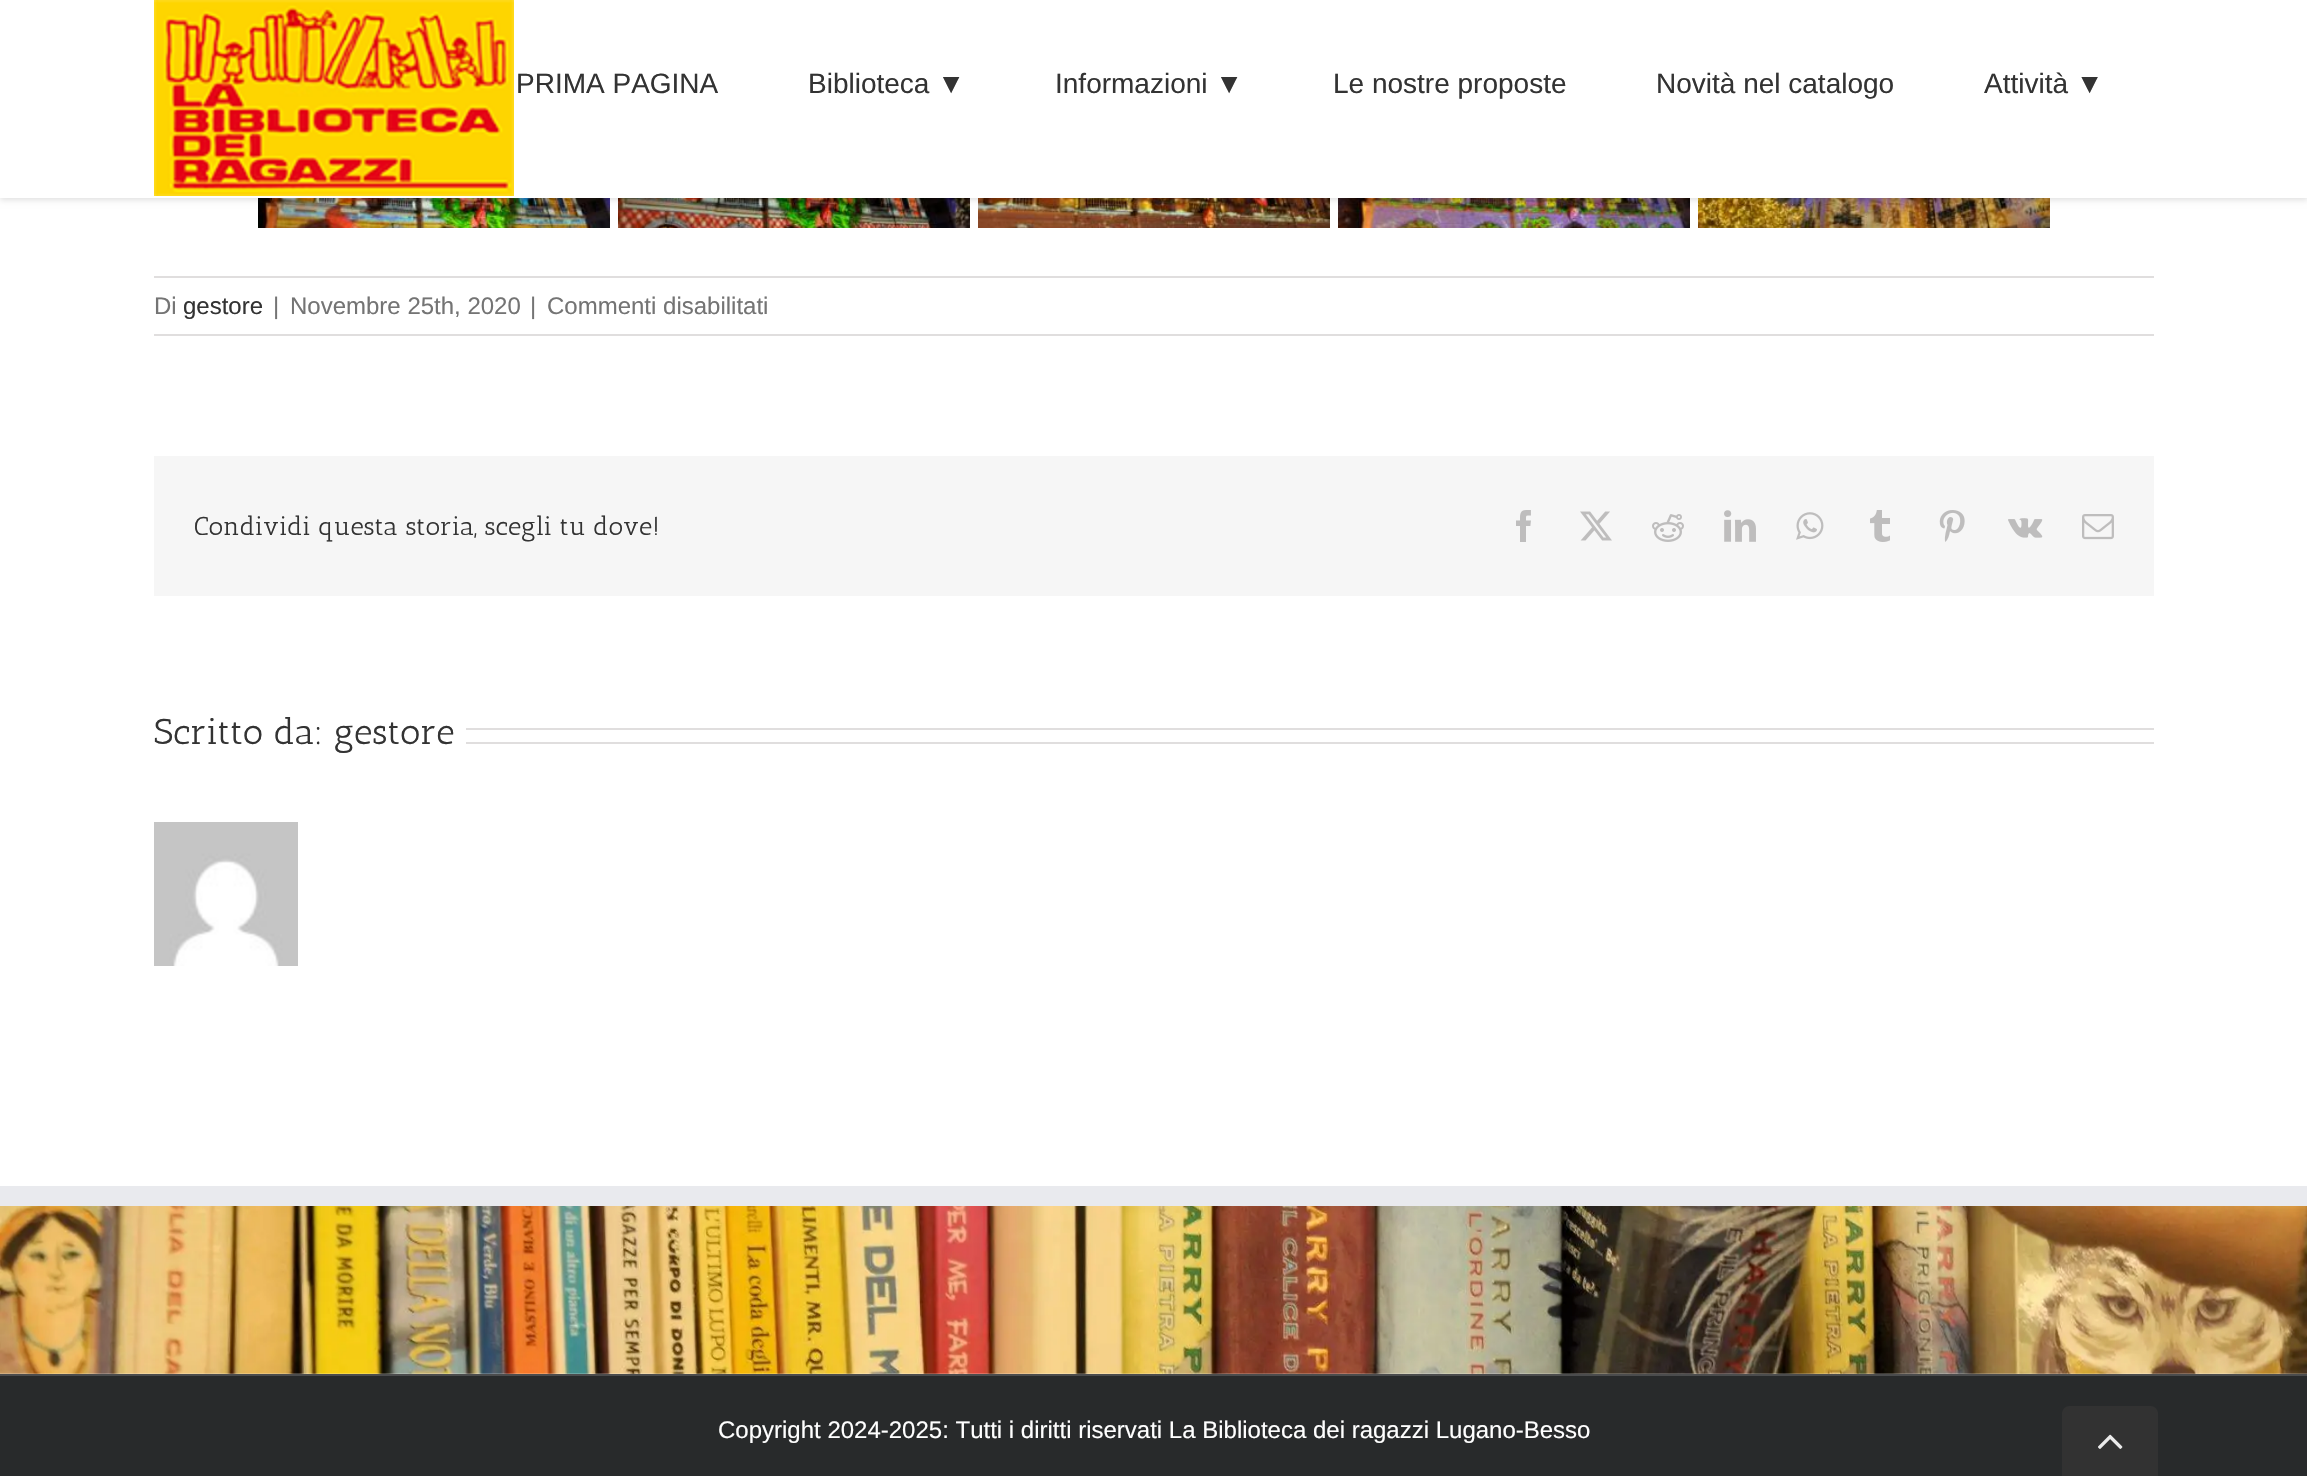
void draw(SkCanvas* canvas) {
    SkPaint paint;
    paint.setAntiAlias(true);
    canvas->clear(0xFFFFFFFF);
    canvas->drawImageRect(SkImages::DeferredFromEncodedData(SkData::MakeFromFileName("img2.png")), SkRect::MakeXYWH(258, 198, 352, 30), SkSamplingOptions());
    canvas->drawImageRect(SkImages::DeferredFromEncodedData(SkData::MakeFromFileName("img3.png")), SkRect::MakeXYWH(618, 198, 352, 30), SkSamplingOptions());
    canvas->drawImageRect(SkImages::DeferredFromEncodedData(SkData::MakeFromFileName("img4.png")), SkRect::MakeXYWH(978, 198, 352, 30), SkSamplingOptions());
    canvas->drawImageRect(SkImages::DeferredFromEncodedData(SkData::MakeFromFileName("img5.png")), SkRect::MakeXYWH(1338, 198, 352, 30), SkSamplingOptions());
    canvas->drawImageRect(SkImages::DeferredFromEncodedData(SkData::MakeFromFileName("img6.png")), SkRect::MakeXYWH(1698, 198, 352, 30), SkSamplingOptions());
    paint.setColor(0x1F000000);
    paint.setMaskFilter(SkMaskFilter::MakeBlur(kNormal_SkBlurStyle, 3));
    canvas->drawRect(SkRect::MakeXYWH(0, 2, 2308, 198), paint);
    paint.setMaskFilter(nullptr);
    paint.setColor(0xFFFFFFFF);
    canvas->drawRect(SkRect::MakeXYWH(0, 0, 2307, 198), paint);
    canvas->drawImageRect(SkImages::DeferredFromEncodedData(SkData::MakeFromFileName("img1.png")), SkRect::MakeXYWH(154, 0, 360, 196), SkSamplingOptions());
    SkFont font1(fontMgr->matchFamilyStyle("Liberation Sans", SkFontStyle::Normal()), 28);
    font1.setSubpixel(true);
    paint.setColor(0xFF333333);
    canvas->drawString("PRIMA PAGINA", 516, 93, font1, paint);
    canvas->drawString("Biblioteca ▼", 808, 93, font1, paint);
    canvas->drawString("Informazioni ▼", 1055, 93, font1, paint);
    canvas->drawString("Le nostre proposte", 1333, 93, font1, paint);
    canvas->drawString("Novità nel catalogo", 1656, 93, font1, paint);
    canvas->drawString("Attività ▼", 1984, 93, font1, paint);
    paint.setColor(0xFFE0DEDE);
    canvas->drawRect(SkRect::MakeXYWH(154, 276, 2000, 2), paint);
    canvas->drawRect(SkRect::MakeXYWH(154, 334, 2000, 2), paint);
    SkFont font2(fontMgr->matchFamilyStyle("Liberation Sans", SkFontStyle::Normal()), 24);
    font2.setSubpixel(true);
    paint.setColor(0xFF747474);
    canvas->drawString("Di", 154, 314, font2, paint);
    paint.setColor(0xFF333333);
    canvas->drawString("gestore", 183, 314, font2, paint);
    paint.setColor(0xFF747474);
    canvas->drawString("|", 273, 314, font2, paint);
    canvas->drawString("Novembre 25th, 2020", 290, 314, font2, paint);
    canvas->drawString("|", 530, 314, font2, paint);
    canvas->drawString("Commenti disabilitati", 547, 314, font2, paint);
    paint.setColor(0xFFF6F6F6);
    canvas->drawRect(SkRect::MakeXYWH(154, 456, 2000, 140), paint);
    SkFont font3(fontMgr->matchFamilyStyle("Antic Slab", SkFontStyle::Normal()), 26);
    font3.setSubpixel(true);
    paint.setColor(0xFF333333);
    canvas->drawString("Condividi questa storia, scegli tu dove!", 194, 535, font3, paint);
    canvas->drawImageRect(SkImages::DeferredFromEncodedData(SkData::MakeFromFileName("img7.png")), SkRect::MakeXYWH(1516, 510, 15, 32), SkSamplingOptions());
    canvas->drawImageRect(SkImages::DeferredFromEncodedData(SkData::MakeFromFileName("img8.png")), SkRect::MakeXYWH(1580, 511, 32, 30), SkSamplingOptions());
    canvas->drawImageRect(SkImages::DeferredFromEncodedData(SkData::MakeFromFileName("img9.png")), SkRect::MakeXYWH(1652, 514, 32, 28), SkSamplingOptions());
    canvas->drawImageRect(SkImages::DeferredFromEncodedData(SkData::MakeFromFileName("img10.png")), SkRect::MakeXYWH(1724, 510, 32, 32), SkSamplingOptions());
    canvas->drawImageRect(SkImages::DeferredFromEncodedData(SkData::MakeFromFileName("img11.png")), SkRect::MakeXYWH(1796, 512, 28, 28), SkSamplingOptions());
    canvas->drawImageRect(SkImages::DeferredFromEncodedData(SkData::MakeFromFileName("img12.png")), SkRect::MakeXYWH(1870, 510, 20, 32), SkSamplingOptions());
    canvas->drawImageRect(SkImages::DeferredFromEncodedData(SkData::MakeFromFileName("img13.png")), SkRect::MakeXYWH(1939, 510, 26, 32), SkSamplingOptions());
    canvas->drawImageRect(SkImages::DeferredFromEncodedData(SkData::MakeFromFileName("img14.png")), SkRect::MakeXYWH(2008, 518, 35, 20), SkSamplingOptions());
    canvas->drawImageRect(SkImages::DeferredFromEncodedData(SkData::MakeFromFileName("img15.png")), SkRect::MakeXYWH(2082, 514, 32, 26), SkSamplingOptions());
    SkFont font4(fontMgr->matchFamilyStyle("Antic Slab", SkFontStyle::Normal()), 36);
    font4.setSubpixel(true);
    canvas->drawString("Scritto da: gestore", 154, 744, font4, paint);
    paint.setColor(0xFFE0DEDE);
    canvas->drawRect(SkRect::MakeXYWH(466, 728, 1688, 2), paint);
    canvas->drawRect(SkRect::MakeXYWH(466, 742, 1688, 2), paint);
    canvas->drawImageRect(SkImages::DeferredFromEncodedData(SkData::MakeFromFileName("img16.png")), SkRect::MakeXYWH(154, 822, 144, 144), SkSamplingOptions());
    canvas->drawImageRect(SkImages::DeferredFromEncodedData(SkData::MakeFromFileName("img17.png")), SkRect::MakeXYWH(0, 1206, 2307, 168), SkSamplingOptions());
    paint.setColor(0xFFE9EAEE);
    canvas->drawRect(SkRect::MakeXYWH(0, 1186, 2307, 20), paint);
    paint.setColor(0xFF282A2B);
    canvas->drawRect(SkRect::MakeXYWH(0, 1376, 2307, 100), paint);
    paint.setColor(0xFF4B4C4D);
    canvas->drawRect(SkRect::MakeXYWH(0, 1374, 2307, 2), paint);
    paint.setColor(0xFFFFFFFF);
    canvas->drawString("Copyright 2024-2025: Tutti i diritti riservati La Biblioteca dei ragazzi Lugano-Besso", 718, 1438, font2, paint);
    paint.setColor(0xFF323232);
    canvas->drawPath(SkPathBuilder().moveTo(2070, 1406).lineTo(2150, 1406).cubicTo(2154.5f, 1406, 2158, 1409.5f, 2158, 1414).lineTo(2158, 1476).lineTo(2062, 1476).lineTo(2062, 1414).cubicTo(2062, 1409.5f, 2065.5f, 1406, 2070, 1406).close().detach(), paint);
    canvas->drawImageRect(SkImages::DeferredFromEncodedData(SkData::MakeFromFileName("img18.png")), SkRect::MakeXYWH(2098, 1434, 25, 15), SkSamplingOptions());
}
